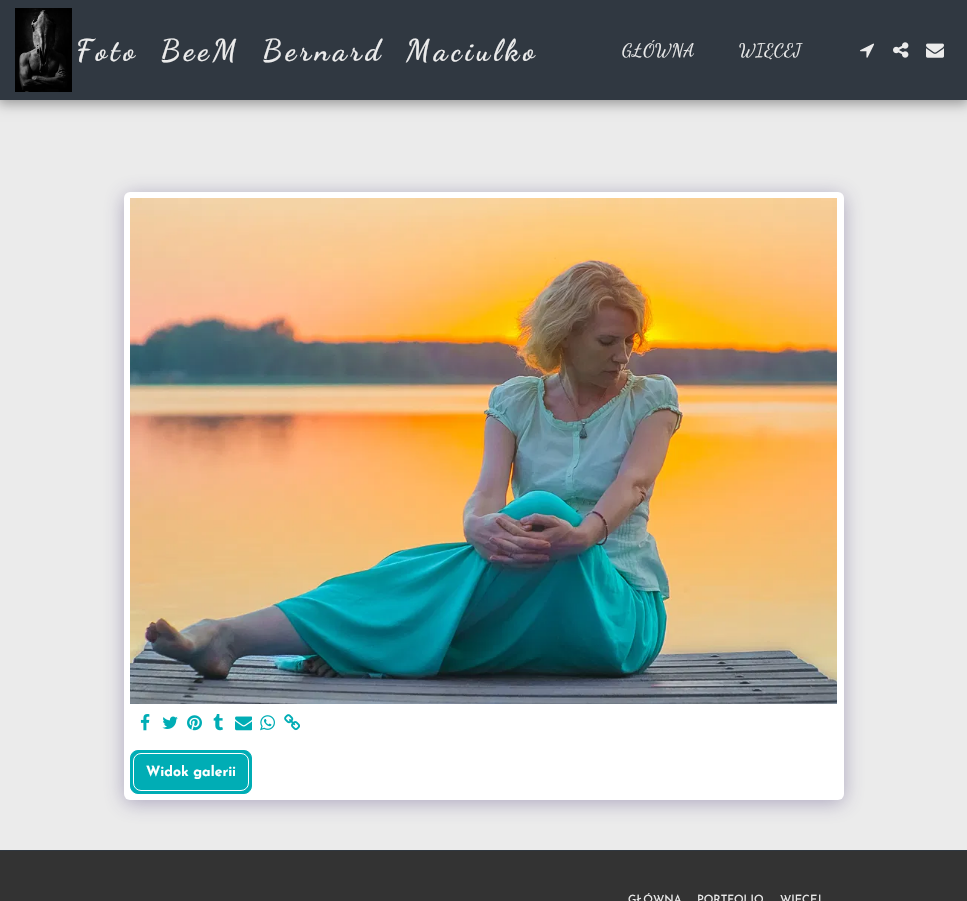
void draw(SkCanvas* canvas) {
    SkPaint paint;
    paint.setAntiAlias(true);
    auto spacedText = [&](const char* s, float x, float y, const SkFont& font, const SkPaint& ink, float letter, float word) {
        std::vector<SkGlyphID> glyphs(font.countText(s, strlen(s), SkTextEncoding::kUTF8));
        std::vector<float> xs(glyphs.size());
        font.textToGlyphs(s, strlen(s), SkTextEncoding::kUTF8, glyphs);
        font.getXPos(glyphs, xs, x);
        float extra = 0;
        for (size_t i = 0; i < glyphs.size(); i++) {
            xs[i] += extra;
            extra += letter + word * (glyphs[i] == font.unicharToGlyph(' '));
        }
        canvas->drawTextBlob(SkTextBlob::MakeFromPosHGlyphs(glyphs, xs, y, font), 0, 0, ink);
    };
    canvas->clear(0xFFEBEBEB);
    paint.setColor(0x59000000);
    paint.setMaskFilter(SkMaskFilter::MakeBlur(kNormal_SkBlurStyle, 6));
    canvas->drawRect(SkRect::MakeXYWH(-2, 0, 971, 104), paint);
    paint.setMaskFilter(nullptr);
    paint.setColor(0xFF303841);
    canvas->drawRect(SkRect::MakeXYWH(0, 0, 967, 100), paint);
    canvas->drawImageRect(SkImages::DeferredFromEncodedData(SkData::MakeFromFileName("img1.png")), SkRect::MakeXYWH(15, 8, 57, 84), SkSamplingOptions());
    SkFont font1(fontMgr->matchFamilyStyle("Dancing Script", SkFontStyle::Bold()), 30);
    font1.setSubpixel(true);
    paint.setColor(0xFFEBEBEB);
    spacedText("Foto BeeM Bernard Maciulko", 76, 60, font1, paint, 4, 10);
    SkFont font2(fontMgr->matchFamilyStyle("Dancing Script", SkFontStyle::Normal()), 18);
    font2.setSubpixel(true);
    spacedText("GŁÓWNA", 622, 56, font2, paint, 0.5f, 0);
    spacedText("WIĘCEJ", 739, 56, font2, paint, 0.5f, 0);
    canvas->drawImageRect(SkImages::DeferredFromEncodedData(SkData::MakeFromFileName("img2.png")), SkRect::MakeXYWH(860, 43, 14, 15), SkSamplingOptions());
    canvas->drawImageRect(SkImages::DeferredFromEncodedData(SkData::MakeFromFileName("img3.png")), SkRect::MakeXYWH(893, 42, 16, 16), SkSamplingOptions());
    canvas->drawImageRect(SkImages::DeferredFromEncodedData(SkData::MakeFromFileName("img4.png")), SkRect::MakeXYWH(926, 43, 18, 15), SkSamplingOptions());
    paint.setColor(0x664D3F7A);
    paint.setMaskFilter(SkMaskFilter::MakeBlur(kNormal_SkBlurStyle, 10));
    canvas->drawRoundRect(SkRect::MakeXYWH(124, 195, 720, 608), 6, 6, paint);
    paint.setMaskFilter(nullptr);
    paint.setColor(0xFFFFFFFF);
    canvas->drawRoundRect(SkRect::MakeXYWH(124, 192, 720, 608), 6, 6, paint);
    canvas->drawImageRect(SkImages::DeferredFromEncodedData(SkData::MakeFromFileName("img5.png")), SkRect::MakeXYWH(130, 198, 707, 506), SkSamplingOptions());
    canvas->drawImageRect(SkImages::DeferredFromEncodedData(SkData::MakeFromFileName("img6.png")), SkRect::MakeXYWH(140, 714, 10, 17), SkSamplingOptions());
    canvas->drawImageRect(SkImages::DeferredFromEncodedData(SkData::MakeFromFileName("img7.png")), SkRect::MakeXYWH(162, 716, 16, 13), SkSamplingOptions());
    canvas->drawImageRect(SkImages::DeferredFromEncodedData(SkData::MakeFromFileName("img8.png")), SkRect::MakeXYWH(187, 715, 15, 16), SkSamplingOptions());
    canvas->drawImageRect(SkImages::DeferredFromEncodedData(SkData::MakeFromFileName("img9.png")), SkRect::MakeXYWH(213, 714, 10, 17), SkSamplingOptions());
    canvas->drawImageRect(SkImages::DeferredFromEncodedData(SkData::MakeFromFileName("img10.png")), SkRect::MakeXYWH(235, 716, 17, 15), SkSamplingOptions());
    canvas->drawImageRect(SkImages::DeferredFromEncodedData(SkData::MakeFromFileName("img11.png")), SkRect::MakeXYWH(260, 715, 15, 16), SkSamplingOptions());
    canvas->drawImageRect(SkImages::DeferredFromEncodedData(SkData::MakeFromFileName("img12.png")), SkRect::MakeXYWH(284, 714, 16, 17), SkSamplingOptions());
    paint.setColor(0xFF00ADB5);
    canvas->drawRoundRect(SkRect::MakeXYWH(130.5f, 750.5f, 121, 43), 7.5f, 7.5f, paint);
    paint.setStyle(SkPaint::kStroke_Style);
    paint.setStrokeWidth(1);
    canvas->drawRoundRect(SkRect::MakeXYWH(130.5f, 750.5f, 121, 43), 7.5f, 7.5f, paint);
    paint.setColor(0xFFFFFFFF);
    canvas->drawRoundRect(SkRect::MakeXYWH(133.5f, 753.5f, 115, 37), 7.5f, 7.5f, paint);
    SkFont font3(fontMgr->matchFamilyStyle("Josefin Sans", SkFontStyle::Bold()), 14);
    font3.setSubpixel(true);
    paint.setStyle(SkPaint::kFill_Style);
    canvas->drawString("Widok galerii", 146, 776, font3, paint);
    paint.setColor(0xFF333333);
    canvas->drawRect(SkRect::MakeXYWH(0, 851, 967, 50), paint);
    paint.setColor(0xFF303841);
    canvas->drawRect(SkRect::MakeXYWH(0, 850, 967, 1), paint);
    SkFont font4(fontMgr->matchFamilyStyle("Josefin Sans", SkFontStyle::Normal()), 11.25f);
    font4.setSubpixel(true);
    paint.setColor(0xFFEBEBEB);
    canvas->drawString("GŁÓWNA", 628, 903, font4, paint);
    canvas->drawString("PORTFOLIO", 697, 903, font4, paint);
    canvas->drawString("WIĘCEJ", 780, 903, font4, paint);
}
